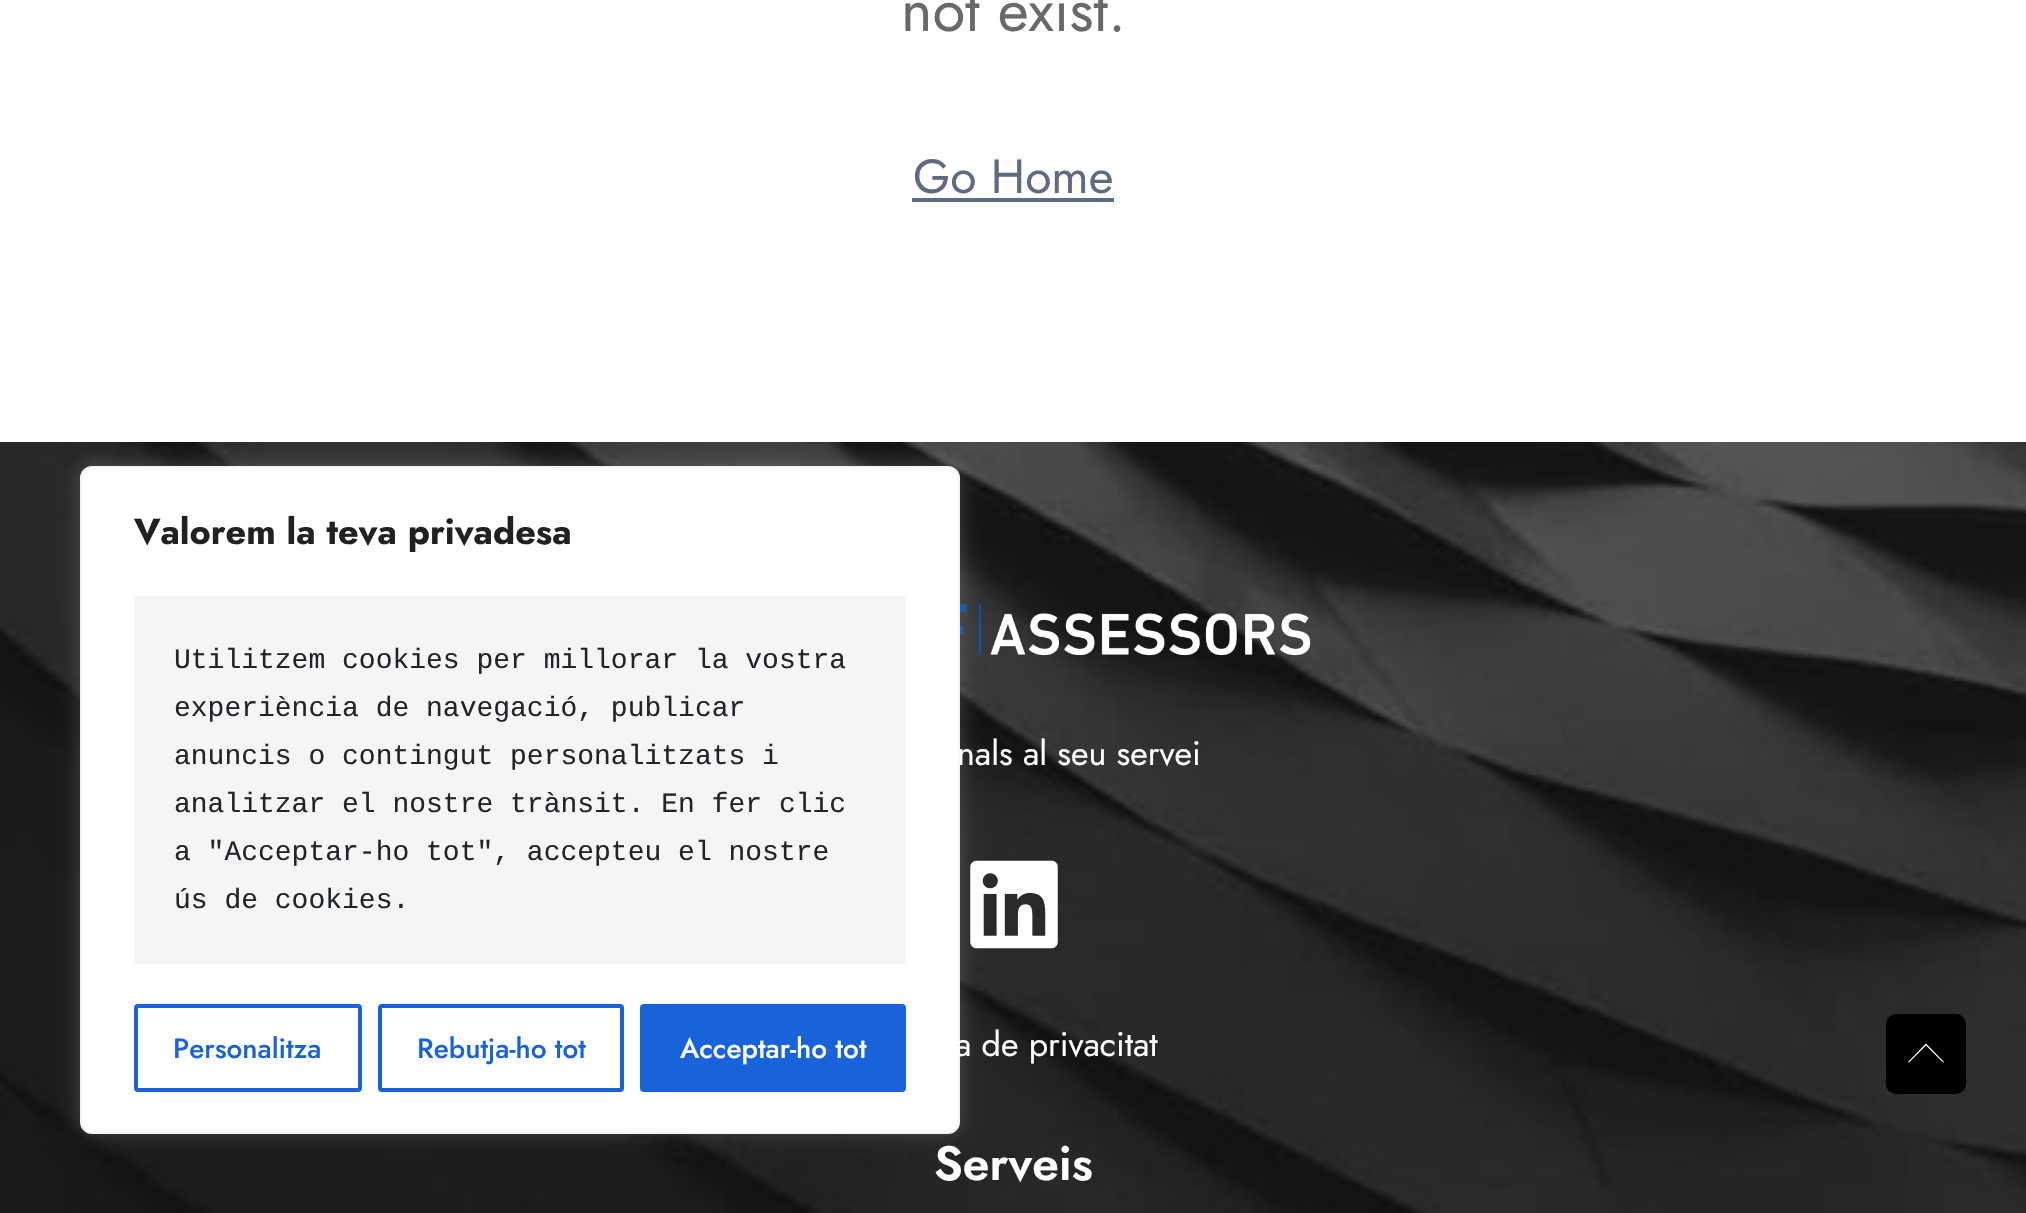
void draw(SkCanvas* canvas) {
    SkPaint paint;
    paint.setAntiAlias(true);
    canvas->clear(0xFFFFFFFF);
    SkFont font1(fontMgr->matchFamilyStyle("Jost", SkFontStyle::Normal()), 60);
    font1.setSubpixel(true);
    paint.setColor(0xFF696969);
    canvas->drawString("not exist.", 901, 31, font1, paint);
    SkFont font2(fontMgr->matchFamilyStyle("Jost", SkFontStyle::Normal()), 48);
    font2.setSubpixel(true);
    paint.setColor(0xFF606B82);
    canvas->drawString("Go Home", 913, 193, font2, paint);
    canvas->drawRect(SkRect::MakeXYWH(912, 198, 202, 4), paint);
    canvas->drawImageRect(SkImages::DeferredFromEncodedData(SkData::MakeFromFileName("img1.png")), SkRect::MakeXYWH(0, 442, 2026, 771), SkSamplingOptions());
    canvas->drawImageRect(SkImages::DeferredFromEncodedData(SkData::MakeFromFileName("img2.png")), SkRect::MakeXYWH(960, 603, 351, 53), SkSamplingOptions());
    canvas->drawImageRect(SkImages::DeferredFromEncodedData(SkData::MakeFromFileName("img3.png")), SkRect::MakeXYWH(970, 860, 88, 89), SkSamplingOptions());
    paint.setColor(0x4DACABAB);
    paint.setMaskFilter(SkMaskFilter::MakeBlur(kNormal_SkBlurStyle, 10));
    canvas->drawRoundRect(SkRect::MakeXYWH(80, 464, 880, 668), 12, 12, paint);
    paint.setMaskFilter(nullptr);
    paint.setColor(0xFFFFFFFF);
    canvas->drawRoundRect(SkRect::MakeXYWH(81, 467, 878, 666), 11, 11, paint);
    paint.setStyle(SkPaint::kStroke_Style);
    paint.setStrokeWidth(2);
    paint.setColor(0xFFF4F4F4);
    canvas->drawRoundRect(SkRect::MakeXYWH(81, 467, 878, 666), 11, 11, paint);
    SkFont font3(fontMgr->matchFamilyStyle("Jost", SkFontStyle::Bold()), 36);
    font3.setSubpixel(true);
    paint.setStyle(SkPaint::kFill_Style);
    paint.setColor(0xFF212121);
    canvas->drawString("Valorem la teva privadesa", 134, 544, font3, paint);
    paint.setColor(0xFFF5F5F5);
    canvas->drawRect(SkRect::MakeXYWH(134, 596, 772, 368), paint);
    SkFont font4(fontMgr->matchFamilyStyle("Liberation Mono", SkFontStyle::Normal()), 28);
    font4.setSubpixel(true);
    paint.setColor(0xFF212529);
    canvas->drawString("Utilitzem cookies per millorar la vostra", 174, 668, font4, paint);
    canvas->drawString("experiència de navegació, publicar", 174, 716, font4, paint);
    canvas->drawString("anuncis o contingut personalitzats i", 174, 764, font4, paint);
    canvas->drawString("analitzar el nostre trànsit. En fer clic", 174, 812, font4, paint);
    canvas->drawString("a \"Acceptar-ho tot\", accepteu el nostre", 174, 860, font4, paint);
    canvas->drawString("ús de cookies.", 174, 908, font4, paint);
    paint.setStyle(SkPaint::kStroke_Style);
    paint.setStrokeWidth(4);
    paint.setColor(0xFF1863DC);
    canvas->drawRoundRect(SkRect::MakeXYWH(136, 1006, 224, 84), 2, 2, paint);
    SkFont font5(fontMgr->matchFamilyStyle("Jost", SkFontStyle(500, SkFontStyle::kNormal_Width, SkFontStyle::kUpright_Slant)), 28);
    font5.setSubpixel(true);
    paint.setStyle(SkPaint::kFill_Style);
    canvas->drawString("Personalitza", 173, 1058, font5, paint);
    paint.setStyle(SkPaint::kStroke_Style);
    canvas->drawRoundRect(SkRect::MakeXYWH(380, 1006, 242, 84), 2, 2, paint);
    paint.setStyle(SkPaint::kFill_Style);
    canvas->drawString("Rebutja-ho tot", 417, 1058, font5, paint);
    canvas->drawRoundRect(SkRect::MakeXYWH(642, 1006, 262, 84), 2, 2, paint);
    paint.setStyle(SkPaint::kStroke_Style);
    canvas->drawRoundRect(SkRect::MakeXYWH(642, 1006, 262, 84), 2, 2, paint);
    paint.setStyle(SkPaint::kFill_Style);
    paint.setColor(0xFFFFFFFF);
    canvas->drawString("Acceptar-ho tot", 680, 1058, font5, paint);
    SkFont font6(fontMgr->matchFamilyStyle("Jost", SkFontStyle::Normal()), 34);
    font6.setSubpixel(true);
    canvas->drawString("nals al seu servei", 957, 765, font6, paint);
    canvas->drawString("a de privacitat", 955, 1056, font6, paint);
    SkFont font7(fontMgr->matchFamilyStyle("Jost", SkFontStyle(600, SkFontStyle::kNormal_Width, SkFontStyle::kUpright_Slant)), 48);
    font7.setSubpixel(true);
    canvas->drawString("Serveis", 934, 1180, font7, paint);
    paint.setColor(0xFF000000);
    canvas->drawRoundRect(SkRect::MakeXYWH(1886, 1014, 80, 80), 10, 10, paint);
    paint.setColor(0xFFFFFFFF);
    canvas->drawPath(SkPathBuilder().moveTo(1943, 1062.5f).lineTo(1926, 1045.5f).lineTo(1909, 1062.5f).lineTo(1908, 1062).lineTo(1926, 1043.5f).lineTo(1944, 1062).close().detach(), paint);
}
